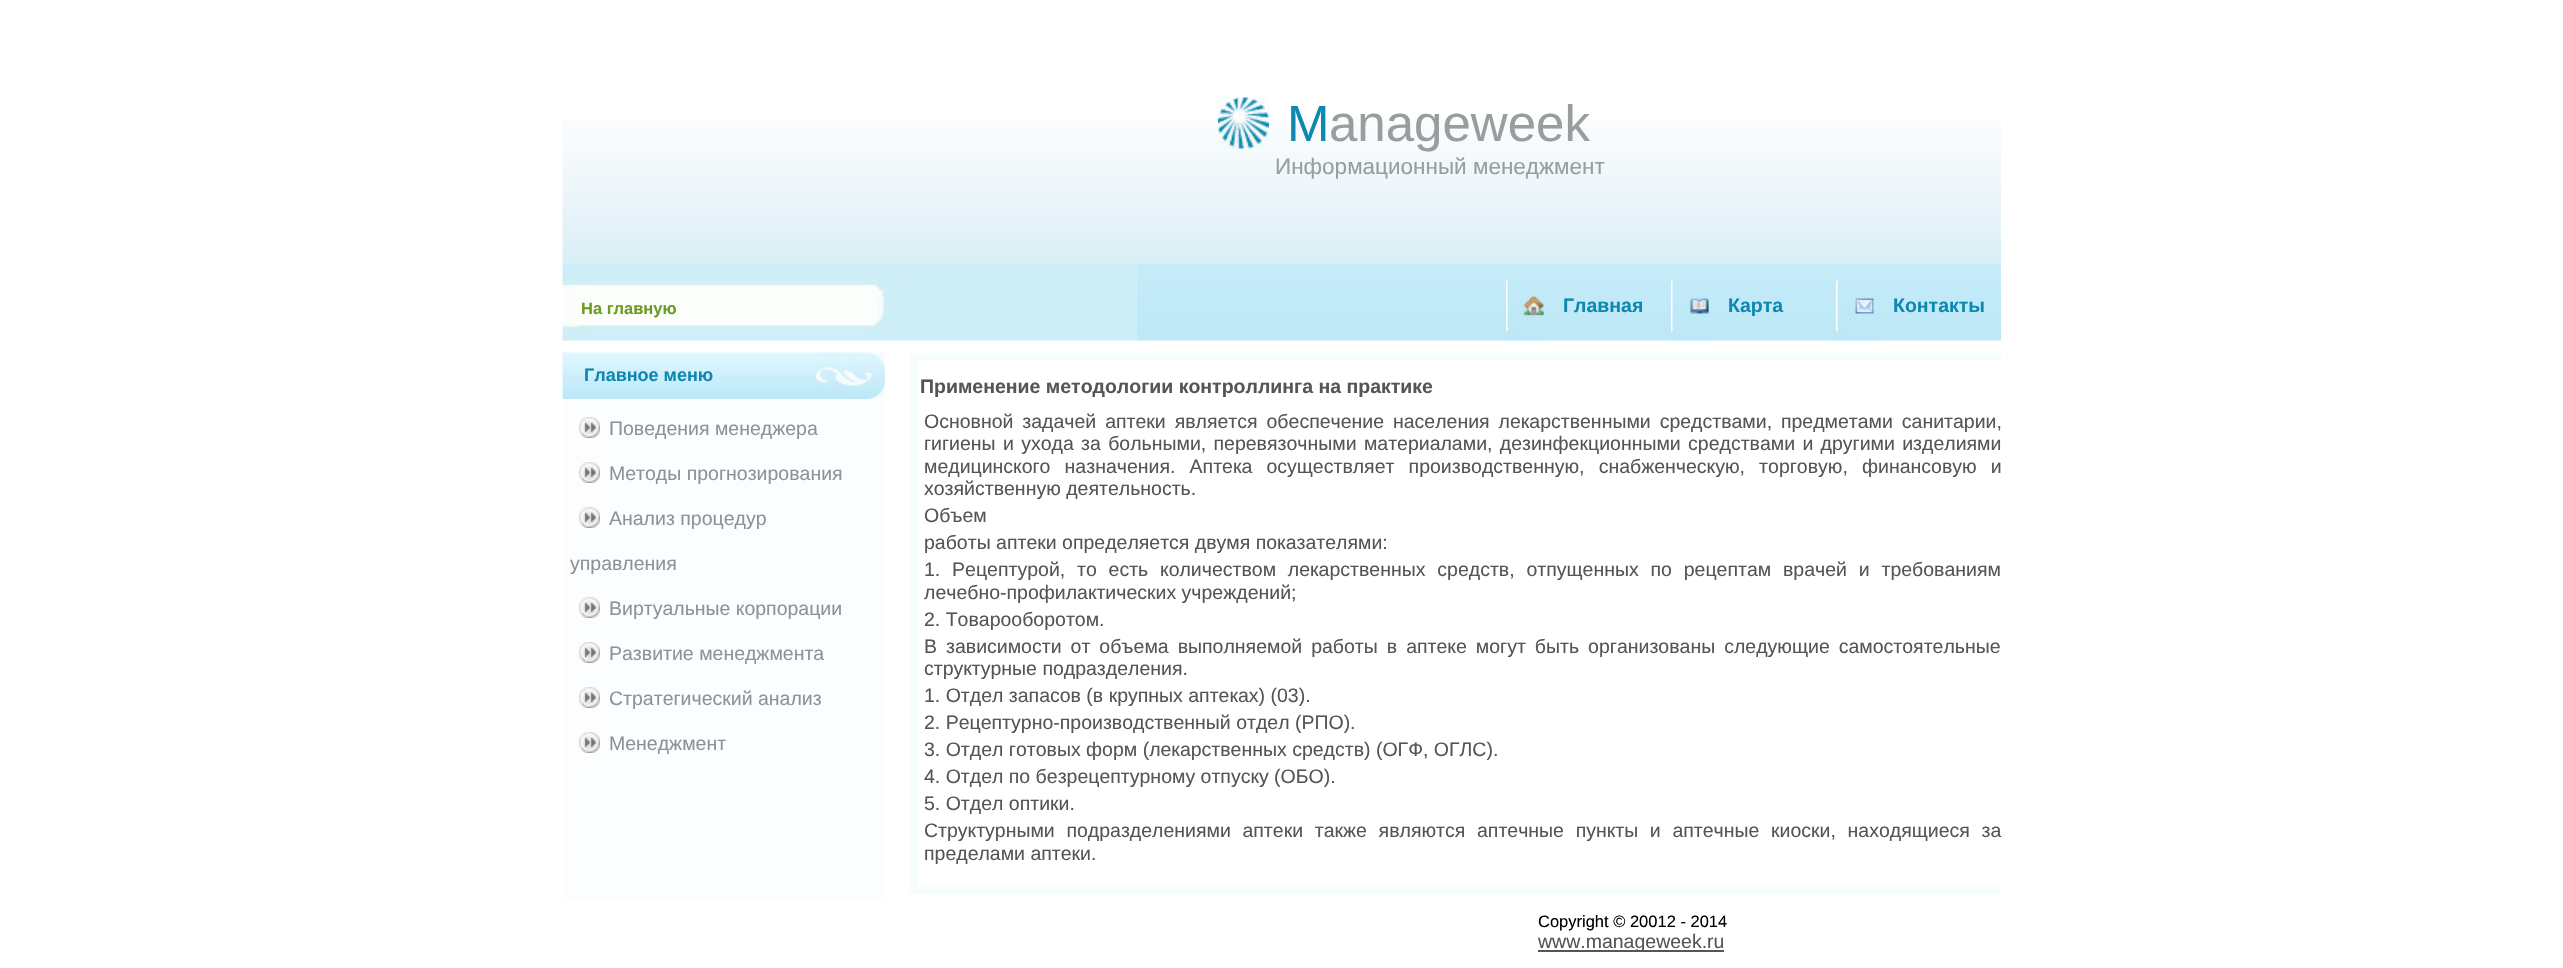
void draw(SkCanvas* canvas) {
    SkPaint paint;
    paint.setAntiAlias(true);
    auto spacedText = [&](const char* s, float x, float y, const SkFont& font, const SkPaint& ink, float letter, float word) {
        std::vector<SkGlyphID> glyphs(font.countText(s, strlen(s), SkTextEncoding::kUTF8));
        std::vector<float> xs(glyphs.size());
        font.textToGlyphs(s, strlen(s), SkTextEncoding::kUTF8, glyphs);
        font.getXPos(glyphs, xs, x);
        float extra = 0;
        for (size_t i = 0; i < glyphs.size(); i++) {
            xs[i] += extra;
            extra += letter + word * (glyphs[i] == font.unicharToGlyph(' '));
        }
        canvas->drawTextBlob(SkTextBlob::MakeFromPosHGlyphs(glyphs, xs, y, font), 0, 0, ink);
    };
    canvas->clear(0xFFFFFFFF);
    canvas->drawImageRect(SkImages::DeferredFromEncodedData(SkData::MakeFromFileName("img1.png")), SkRect::MakeXYWH(562, 119, 1439, 145), SkSamplingOptions());
    canvas->drawImageRect(SkImages::DeferredFromEncodedData(SkData::MakeFromFileName("img2.png")), SkRect::MakeXYWH(562, 264, 575, 77), SkSamplingOptions());
    SkFont font1(fontMgr->matchFamilyStyle("Liberation Sans", SkFontStyle::Bold()), 16.5f);
    font1.setSubpixel(true);
    paint.setColor(0xFF6B9C22);
    canvas->drawString("На главную", 581, 314, font1, paint);
    canvas->drawImageRect(SkImages::DeferredFromEncodedData(SkData::MakeFromFileName("img3.png")), SkRect::MakeXYWH(1218, 97, 51, 52), SkSamplingOptions());
    SkFont font2(fontMgr->matchFamilyStyle("Liberation Sans", SkFontStyle::Normal()), 51);
    font2.setSubpixel(true);
    paint.setColor(0xFF0E88AF);
    canvas->drawString("M", 1287, 141, font2, paint);
    paint.setColor(0xFF989D9E);
    canvas->drawString("anageweek", 1329, 141, font2, paint);
    SkFont font3(fontMgr->matchFamilyStyle("Liberation Sans", SkFontStyle::Normal()), 22.5f);
    font3.setSubpixel(true);
    canvas->drawString("Информационный менеджмент", 1275, 174, font3, paint);
    canvas->drawImageRect(SkImages::DeferredFromEncodedData(SkData::MakeFromFileName("img4.png")), SkRect::MakeXYWH(1137, 264, 864, 77), SkSamplingOptions());
    canvas->drawImageRect(SkImages::DeferredFromEncodedData(SkData::MakeFromFileName("img5.png")), SkRect::MakeXYWH(1506, 276, 38, 65), SkSamplingOptions());
    SkFont font4(fontMgr->matchFamilyStyle("Liberation Sans", SkFontStyle::Bold()), 19.5f);
    font4.setSubpixel(true);
    paint.setColor(0xFF0E88AF);
    canvas->drawString("Главная", 1563, 312, font4, paint);
    canvas->drawImageRect(SkImages::DeferredFromEncodedData(SkData::MakeFromFileName("img6.png")), SkRect::MakeXYWH(1671, 276, 38, 65), SkSamplingOptions());
    canvas->drawString("Карта", 1728, 312, font4, paint);
    canvas->drawImageRect(SkImages::DeferredFromEncodedData(SkData::MakeFromFileName("img7.png")), SkRect::MakeXYWH(1836, 276, 38, 65), SkSamplingOptions());
    canvas->drawString("Контакты", 1893, 312, font4, paint);
    paint.setColor(0xFFFBFDFE);
    canvas->drawRect(SkRect::MakeXYWH(563, 399, 322, 501), paint);
    canvas->drawImageRect(SkImages::DeferredFromEncodedData(SkData::MakeFromFileName("img8.png")), SkRect::MakeXYWH(562, 352, 254, 47), SkSamplingOptions());
    SkFont font5(fontMgr->matchFamilyStyle("Liberation Sans", SkFontStyle::Bold()), 18);
    font5.setSubpixel(true);
    paint.setColor(0xFF0E88AF);
    canvas->drawString("Главное меню", 584, 381, font5, paint);
    canvas->drawImageRect(SkImages::DeferredFromEncodedData(SkData::MakeFromFileName("img9.png")), SkRect::MakeXYWH(816, 352, 69, 47), SkSamplingOptions());
    canvas->drawImageRect(SkImages::DeferredFromEncodedData(SkData::MakeFromFileName("img10.png")), SkRect::MakeXYWH(579, 417, 21, 21), SkSamplingOptions());
    SkFont font6(fontMgr->matchFamilyStyle("Liberation Sans", SkFontStyle::Normal()), 19.5f);
    font6.setSubpixel(true);
    paint.setColor(0xFF8D9395);
    canvas->drawString("Поведения менеджера", 609, 435, font6, paint);
    canvas->drawImageRect(SkImages::DeferredFromEncodedData(SkData::MakeFromFileName("img10.png")), SkRect::MakeXYWH(579, 462, 21, 21), SkSamplingOptions());
    canvas->drawString("Методы прогнозирования", 609, 480, font6, paint);
    canvas->drawImageRect(SkImages::DeferredFromEncodedData(SkData::MakeFromFileName("img10.png")), SkRect::MakeXYWH(579, 507, 21, 21), SkSamplingOptions());
    canvas->drawString("Анализ процедур", 609, 525, font6, paint);
    canvas->drawString("управления", 570, 570, font6, paint);
    canvas->drawImageRect(SkImages::DeferredFromEncodedData(SkData::MakeFromFileName("img10.png")), SkRect::MakeXYWH(579, 597, 21, 21), SkSamplingOptions());
    canvas->drawString("Виртуальные корпорации", 609, 615, font6, paint);
    canvas->drawImageRect(SkImages::DeferredFromEncodedData(SkData::MakeFromFileName("img10.png")), SkRect::MakeXYWH(579, 642, 21, 21), SkSamplingOptions());
    canvas->drawString("Развитие менеджмента", 609, 660, font6, paint);
    canvas->drawImageRect(SkImages::DeferredFromEncodedData(SkData::MakeFromFileName("img10.png")), SkRect::MakeXYWH(579, 687, 21, 21), SkSamplingOptions());
    canvas->drawString("Стратегический анализ", 609, 705, font6, paint);
    canvas->drawImageRect(SkImages::DeferredFromEncodedData(SkData::MakeFromFileName("img10.png")), SkRect::MakeXYWH(579, 732, 21, 21), SkSamplingOptions());
    canvas->drawString("Менеджмент", 609, 750, font6, paint);
    paint.setColor(0xFFF5FDFD);
    canvas->drawRect(SkRect::MakeXYWH(909, 353, 1092, 541), paint);
    paint.setColor(0xFFFFFFFF);
    canvas->drawRect(SkRect::MakeXYWH(917, 360, 1084, 527), paint);
    paint.setColor(0xFF555555);
    canvas->drawString("Применение методологии контроллинга на практике", 920, 393, font4, paint);
    spacedText("Основной задачей аптеки является обеспечение населения лекарственными средствами, предметами санитарии,", 924, 428, font6, paint, 0, 3.5f);
    spacedText("гигиены и ухода за больными, перевязочными материалами, дезинфекционными средствами и другими изделиями", 924, 450, font6, paint, 0, 1.9f);
    spacedText("медицинского назначения. Аптека осуществляет производственную, снабженческую, торговую, финансовую и", 924, 473, font6, paint, 0, 8.75f);
    canvas->drawString("хозяйственную деятельность.", 924, 495, font6, paint);
    canvas->drawString("Объем", 924, 522, font6, paint);
    canvas->drawString("работы аптеки определяется двумя показателями:", 924, 549, font6, paint);
    spacedText("1. Рецептурой, то есть количеством лекарственных средств, отпущенных по рецептам врачей и требованиям", 924, 576, font6, paint, 0, 6.4f);
    canvas->drawString("лечебно-профилактических учреждений;", 924, 599, font6, paint);
    canvas->drawString("2. Товарооборотом.", 924, 626, font6, paint);
    spacedText("В зависимости от объема выполняемой работы в аптеке могут быть организованы следующие самостоятельные", 924, 653, font6, paint, 0, 3.6f);
    canvas->drawString("структурные подразделения.", 924, 675, font6, paint);
    canvas->drawString("1. Отдел запасов (в крупных аптеках) (03).", 924, 702, font6, paint);
    canvas->drawString("2. Рецептурно-производственный отдел (РПО).", 924, 729, font6, paint);
    canvas->drawString("3. Отдел готовых форм (лекарственных средств) (ОГФ, ОГЛС).", 924, 756, font6, paint);
    canvas->drawString("4. Отдел по безрецептурному отпуску (ОБО).", 924, 783, font6, paint);
    canvas->drawString("5. Отдел оптики.", 924, 810, font6, paint);
    spacedText("Структурными подразделениями аптеки также являются аптечные пункты и аптечные киоски, находящиеся за", 924, 837, font6, paint, 0, 6.25f);
    canvas->drawString("пределами аптеки.", 924, 860, font6, paint);
    SkFont font7(fontMgr->matchFamilyStyle("Liberation Sans", SkFontStyle::Normal()), 16.5f);
    font7.setSubpixel(true);
    paint.setColor(0xFF000000);
    canvas->drawString("Copyright © 20012 - 2014", 1538, 927, font7, paint);
    paint.setColor(0xFF5A5551);
    canvas->drawRect(SkRect::MakeXYWH(1538, 950, 186, 2), paint);
    paint.setColor(0xFF555555);
    canvas->drawString("www.manageweek.ru", 1538, 948, font6, paint);
}
